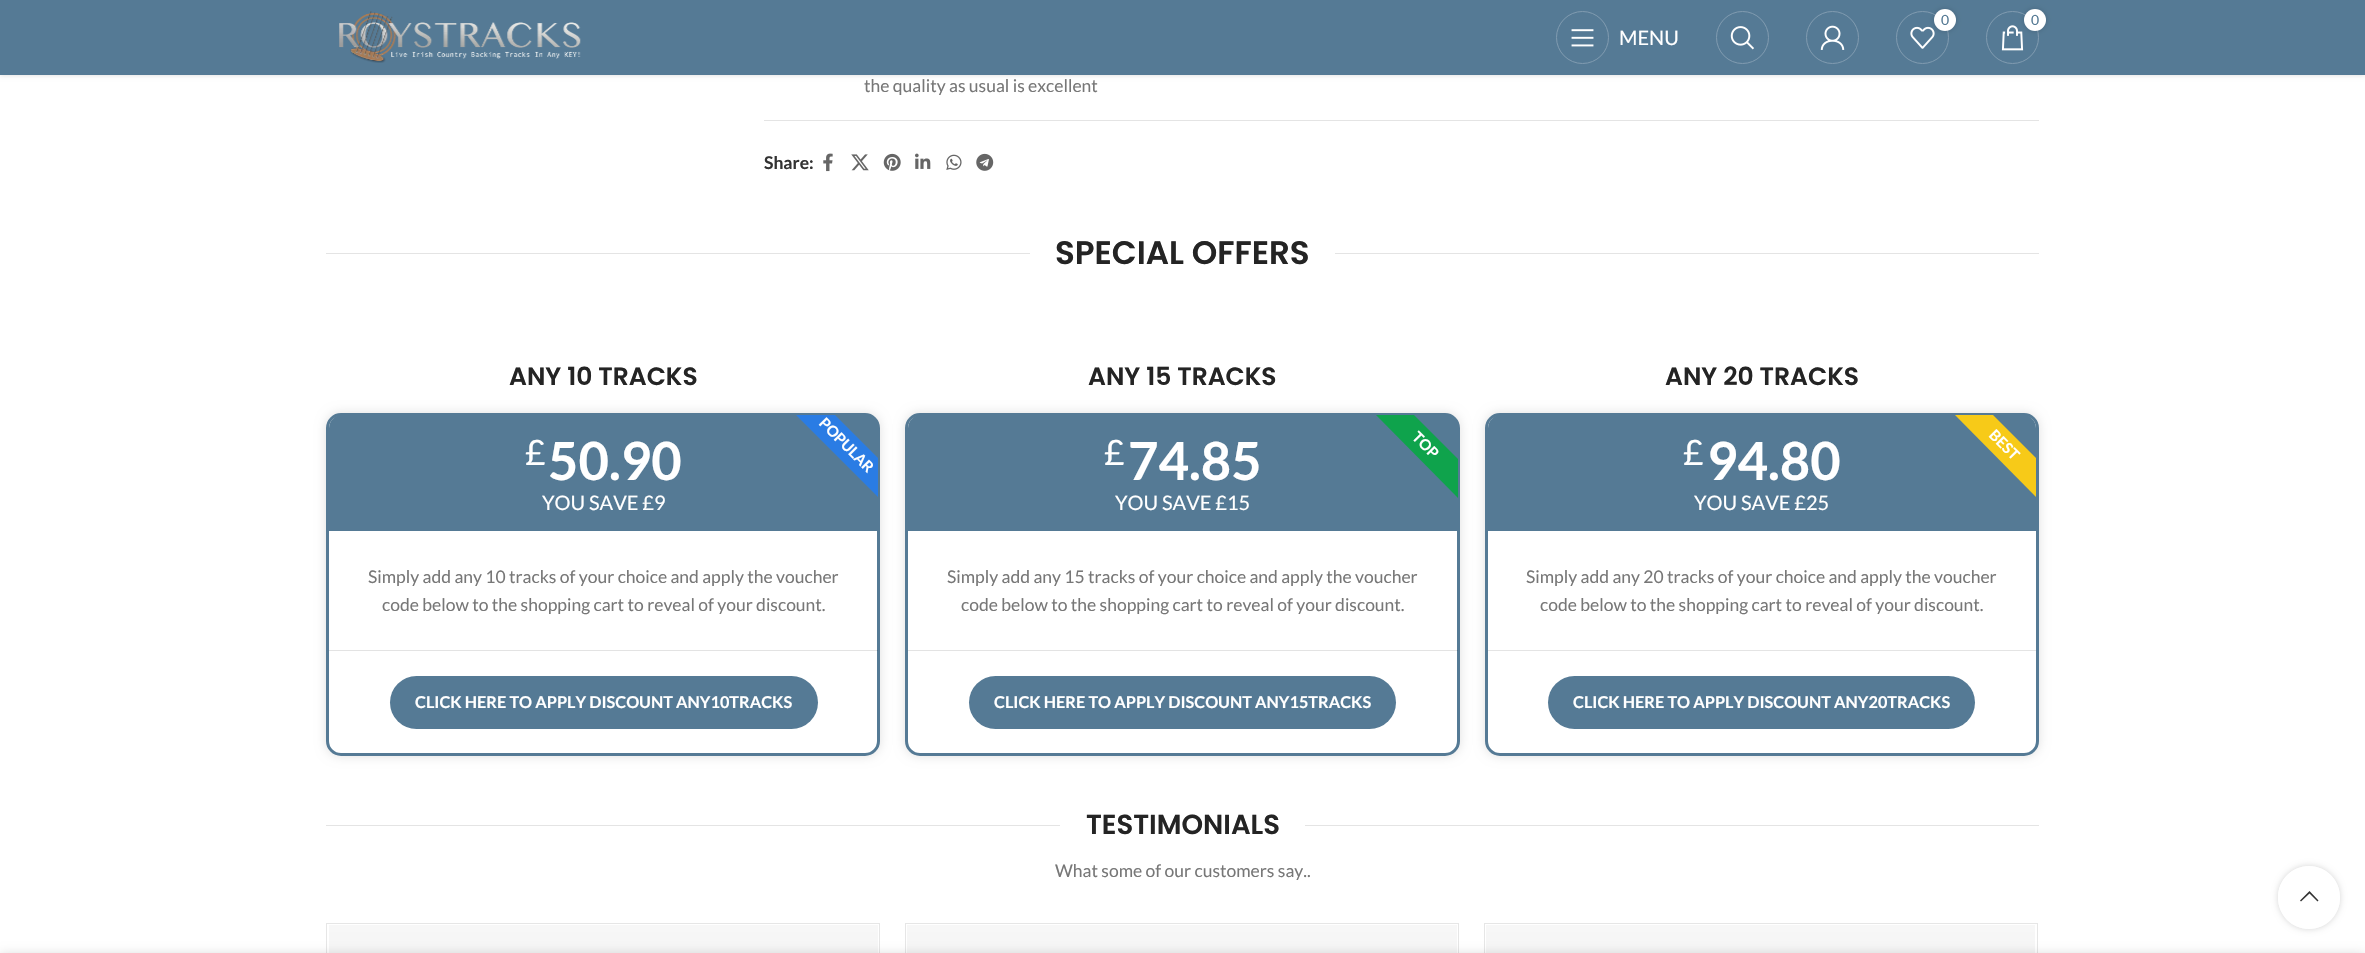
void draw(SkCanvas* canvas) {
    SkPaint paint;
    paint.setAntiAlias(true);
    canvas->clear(0xFFFFFFFF);
    paint.setColor(0x1A000000);
    paint.setMaskFilter(SkMaskFilter::MakeBlur(kNormal_SkBlurStyle, 2));
    canvas->drawRect(SkRect::MakeXYWH(0, 1, 2365, 75), paint);
    paint.setMaskFilter(nullptr);
    paint.setColor(0xFF557A95);
    canvas->drawRect(SkRect::MakeXYWH(0, 0, 2365, 75), paint);
    canvas->drawImageRect(SkImages::DeferredFromEncodedData(SkData::MakeFromFileName("img1.png")), SkRect::MakeXYWH(339, 11, 242, 52), SkSamplingOptions());
    paint.setStyle(SkPaint::kStroke_Style);
    paint.setStrokeWidth(1);
    paint.setColor(0xFF809BB0);
    canvas->drawCircle(1742.5f, 37.5f, 26, paint);
    canvas->drawImageRect(SkImages::DeferredFromEncodedData(SkData::MakeFromFileName("img2.png")), SkRect::MakeXYWH(1730, 26, 24, 24), SkSamplingOptions());
    canvas->drawCircle(1832.5f, 37.5f, 26, paint);
    canvas->drawImageRect(SkImages::DeferredFromEncodedData(SkData::MakeFromFileName("img3.png")), SkRect::MakeXYWH(1820, 25, 25, 25), SkSamplingOptions());
    canvas->drawCircle(1922.5f, 37.5f, 26, paint);
    canvas->drawImageRect(SkImages::DeferredFromEncodedData(SkData::MakeFromFileName("img4.png")), SkRect::MakeXYWH(1910, 26, 25, 23), SkSamplingOptions());
    paint.setStyle(SkPaint::kFill_Style);
    paint.setColor(0x2B000000);
    paint.setMaskFilter(SkMaskFilter::MakeBlur(kNormal_SkBlurStyle, 2.5f));
    canvas->drawRoundRect(SkRect::MakeXYWH(1934, 9, 22, 22), 11, 11, paint);
    paint.setMaskFilter(nullptr);
    paint.setColor(0xFFFFFFFF);
    canvas->drawCircle(1945, 20, 11, paint);
    SkFont font1(fontMgr->matchFamilyStyle("Lato", SkFontStyle::Normal()), 14);
    font1.setSubpixel(true);
    paint.setColor(0xFF557A95);
    canvas->drawString("0", 1941, 25, font1, paint);
    paint.setStyle(SkPaint::kStroke_Style);
    paint.setColor(0xFF809BB0);
    canvas->drawCircle(2012.5f, 37.5f, 26, paint);
    canvas->drawImageRect(SkImages::DeferredFromEncodedData(SkData::MakeFromFileName("img5.png")), SkRect::MakeXYWH(2001, 25, 23, 26), SkSamplingOptions());
    paint.setStyle(SkPaint::kFill_Style);
    paint.setColor(0x2B000000);
    paint.setMaskFilter(SkMaskFilter::MakeBlur(kNormal_SkBlurStyle, 2.5f));
    canvas->drawRoundRect(SkRect::MakeXYWH(2024, 9, 22, 22), 11, 11, paint);
    paint.setMaskFilter(nullptr);
    paint.setColor(0xFFFFFFFF);
    canvas->drawCircle(2035, 20, 11, paint);
    paint.setColor(0xFF557A95);
    canvas->drawString("0", 2031, 25, font1, paint);
    paint.setStyle(SkPaint::kStroke_Style);
    paint.setColor(0xFF809BB0);
    canvas->drawCircle(1582.5f, 37.5f, 26, paint);
    canvas->drawImageRect(SkImages::DeferredFromEncodedData(SkData::MakeFromFileName("img6.png")), SkRect::MakeXYWH(1571, 29, 23, 18), SkSamplingOptions());
    SkFont font2(fontMgr->matchFamilyStyle("Lato", SkFontStyle::Normal()), 20);
    font2.setSubpixel(true);
    paint.setStyle(SkPaint::kFill_Style);
    paint.setColor(0xFFFFFFFF);
    canvas->drawString("MENU", 1619, 45, font2, paint);
    paint.setColor(0xFFE4E4E4);
    canvas->drawRect(SkRect::MakeXYWH(764, 120, 1275, 1), paint);
    SkFont font3(fontMgr->matchFamilyStyle("Lato", SkFontStyle::Normal()), 17.5f);
    font3.setSubpixel(true);
    paint.setColor(0xFF777777);
    canvas->drawString("the quality as usual is excellent", 864, 92, font3, paint);
    SkFont font4(fontMgr->matchFamilyStyle("Lato", SkFontStyle::Bold()), 17.5f);
    font4.setSubpixel(true);
    paint.setColor(0xFF333333);
    canvas->drawString("Share:", 764, 169, font4, paint);
    canvas->drawImageRect(SkImages::DeferredFromEncodedData(SkData::MakeFromFileName("img7.png")), SkRect::MakeXYWH(823, 153, 10, 19), SkSamplingOptions());
    canvas->drawImageRect(SkImages::DeferredFromEncodedData(SkData::MakeFromFileName("img8.png")), SkRect::MakeXYWH(851, 154, 18, 17), SkSamplingOptions());
    canvas->drawImageRect(SkImages::DeferredFromEncodedData(SkData::MakeFromFileName("img9.png")), SkRect::MakeXYWH(883, 153, 18, 18), SkSamplingOptions());
    canvas->drawImageRect(SkImages::DeferredFromEncodedData(SkData::MakeFromFileName("img10.png")), SkRect::MakeXYWH(915, 153, 16, 16), SkSamplingOptions());
    canvas->drawImageRect(SkImages::DeferredFromEncodedData(SkData::MakeFromFileName("img11.png")), SkRect::MakeXYWH(946, 154, 16, 16), SkSamplingOptions());
    canvas->drawImageRect(SkImages::DeferredFromEncodedData(SkData::MakeFromFileName("img12.png")), SkRect::MakeXYWH(976, 153, 18, 18), SkSamplingOptions());
    paint.setColor(0xFFE4E4E4);
    canvas->drawRect(SkRect::MakeXYWH(326, 253, 704, 1), paint);
    SkFont font5(fontMgr->matchFamilyStyle("Poppins", SkFontStyle(600, SkFontStyle::kNormal_Width, SkFontStyle::kUpright_Slant)), 32.5f);
    font5.setSubpixel(true);
    paint.setColor(0xFF242424);
    canvas->drawString("SPECIAL OFFERS", 1055, 264, font5, paint);
    paint.setColor(0xFFE4E4E4);
    canvas->drawRect(SkRect::MakeXYWH(1335, 253, 704, 1), paint);
    SkFont font6(fontMgr->matchFamilyStyle("Poppins", SkFontStyle(600, SkFontStyle::kNormal_Width, SkFontStyle::kUpright_Slant)), 25);
    font6.setSubpixel(true);
    paint.setColor(0xFF242424);
    canvas->drawString("ANY 10 TRACKS", 509, 385, font6, paint);
    paint.setColor(0x1F000000);
    paint.setMaskFilter(SkMaskFilter::MakeBlur(kNormal_SkBlurStyle, 5.5f));
    canvas->drawRoundRect(SkRect::MakeXYWH(326, 413, 554, 343), 15, 15, paint);
    paint.setMaskFilter(nullptr);
    paint.setColor(0xFFFFFFFF);
    canvas->drawRoundRect(SkRect::MakeXYWH(327.5f, 414.5f, 551, 340), 13.5f, 13.5f, paint);
    paint.setStyle(SkPaint::kStroke_Style);
    paint.setStrokeWidth(3);
    paint.setColor(0xFF557A95);
    canvas->drawRoundRect(SkRect::MakeXYWH(327.5f, 414.5f, 551, 340), 13.5f, 13.5f, paint);
    paint.setStyle(SkPaint::kFill_Style);
    canvas->drawPath(SkPathBuilder().moveTo(342, 415).lineTo(865, 415).cubicTo(872, 415, 878, 421, 878, 428).lineTo(878, 531).lineTo(329, 531).lineTo(329, 428).cubicTo(329, 421, 335, 415, 342, 415).close().detach(), paint);
    SkFont font7(fontMgr->matchFamilyStyle("Lato", SkFontStyle::Normal()), 35);
    font7.setSubpixel(true);
    paint.setColor(0xFFFFFFFF);
    canvas->drawString("£", 525, 465, font7, paint);
    SkFont font8(fontMgr->matchFamilyStyle("Lato", SkFontStyle::Bold()), 52.5f);
    font8.setSubpixel(true);
    canvas->drawString("50.90", 548, 480, font8, paint);
    canvas->drawString("YOU SAVE £9", 542, 510, font2, paint);
    paint.setColor(0xFF2A7CE4);
    canvas->drawPath(SkPathBuilder().moveTo(878, 497).lineTo(796, 415).lineTo(835, 415).lineTo(878, 458).close().detach(), paint);
    SkFont font9(fontMgr->matchFamilyStyle("Lato", SkFontStyle::Bold()), 15);
    font9.setSubpixel(true);
    paint.setColor(0xFFFFFFFF);
    canvas->save();
    canvas->rotate(45, 818, 424);
    canvas->drawString("POPULAR", 818, 424, font9, paint);
    canvas->restore();
    paint.setColor(0x1C000000);
    canvas->drawRect(SkRect::MakeXYWH(329, 650, 549, 1), paint);
    paint.setColor(0xFF777777);
    canvas->drawString("Simply add any 10 tracks of your choice and apply the voucher", 368, 583, font3, paint);
    canvas->drawString("code below to the shopping cart to reveal of your discount.", 382, 611, font3, paint);
    paint.setColor(0xFF557A95);
    canvas->drawRoundRect(SkRect::MakeXYWH(390, 676, 428, 53), 26.5f, 26.5f, paint);
    SkFont font10(fontMgr->matchFamilyStyle("Lato", SkFontStyle::Bold()), 16.25f);
    font10.setSubpixel(true);
    paint.setColor(0xFFFFFFFF);
    canvas->drawString("CLICK HERE TO APPLY DISCOUNT ANY10TRACKS", 415, 708, font10, paint);
    paint.setColor(0xFF242424);
    canvas->drawString("ANY 15 TRACKS", 1088, 385, font6, paint);
    paint.setColor(0x1F000000);
    paint.setMaskFilter(SkMaskFilter::MakeBlur(kNormal_SkBlurStyle, 5.5f));
    canvas->drawRoundRect(SkRect::MakeXYWH(905, 413, 555, 343), 15, 15, paint);
    paint.setMaskFilter(nullptr);
    paint.setColor(0xFFFFFFFF);
    canvas->drawRoundRect(SkRect::MakeXYWH(906.5f, 414.5f, 552, 340), 13.5f, 13.5f, paint);
    paint.setStyle(SkPaint::kStroke_Style);
    paint.setColor(0xFF557A95);
    canvas->drawRoundRect(SkRect::MakeXYWH(906.5f, 414.5f, 552, 340), 13.5f, 13.5f, paint);
    paint.setStyle(SkPaint::kFill_Style);
    canvas->drawPath(SkPathBuilder().moveTo(921, 415).lineTo(1445, 415).cubicTo(1452, 415, 1458, 421, 1458, 428).lineTo(1458, 531).lineTo(908, 531).lineTo(908, 428).cubicTo(908, 421, 914, 415, 921, 415).close().detach(), paint);
    paint.setColor(0xFFFFFFFF);
    canvas->drawString("£", 1104, 465, font7, paint);
    canvas->drawString("74.85", 1128, 480, font8, paint);
    canvas->drawString("YOU SAVE £15", 1115, 510, font2, paint);
    paint.setColor(0xFF0FA34C);
    canvas->drawPath(SkPathBuilder().moveTo(1458, 498).lineTo(1376, 415).lineTo(1414, 415).lineTo(1458, 459).close().detach(), paint);
    paint.setColor(0xFFFFFFFF);
    canvas->save();
    canvas->rotate(45, 1411, 438);
    canvas->drawString("TOP", 1411, 438, font9, paint);
    canvas->restore();
    paint.setColor(0x1C000000);
    canvas->drawRect(SkRect::MakeXYWH(908, 650, 550, 1), paint);
    paint.setColor(0xFF777777);
    canvas->drawString("Simply add any 15 tracks of your choice and apply the voucher", 947, 583, font3, paint);
    canvas->drawString("code below to the shopping cart to reveal of your discount.", 961, 611, font3, paint);
    paint.setColor(0xFF557A95);
    canvas->drawRoundRect(SkRect::MakeXYWH(969, 676, 427, 53), 26.5f, 26.5f, paint);
    paint.setColor(0xFFFFFFFF);
    canvas->drawString("CLICK HERE TO APPLY DISCOUNT ANY15TRACKS", 994, 708, font10, paint);
    paint.setColor(0xFF242424);
    canvas->drawString("ANY 20 TRACKS", 1665, 385, font6, paint);
    paint.setColor(0x1F000000);
    paint.setMaskFilter(SkMaskFilter::MakeBlur(kNormal_SkBlurStyle, 5.5f));
    canvas->drawRoundRect(SkRect::MakeXYWH(1485, 413, 554, 343), 15, 15, paint);
    paint.setMaskFilter(nullptr);
    paint.setColor(0xFFFFFFFF);
    canvas->drawRoundRect(SkRect::MakeXYWH(1486.5f, 414.5f, 551, 340), 13.5f, 13.5f, paint);
    paint.setStyle(SkPaint::kStroke_Style);
    paint.setColor(0xFF557A95);
    canvas->drawRoundRect(SkRect::MakeXYWH(1486.5f, 414.5f, 551, 340), 13.5f, 13.5f, paint);
    paint.setStyle(SkPaint::kFill_Style);
    canvas->drawPath(SkPathBuilder().moveTo(1501, 415).lineTo(2023, 415).cubicTo(2030, 415, 2036, 421, 2036, 428).lineTo(2036, 531).lineTo(1488, 531).lineTo(1488, 428).cubicTo(1488, 421, 1494, 415, 1501, 415).close().detach(), paint);
    paint.setColor(0xFFFFFFFF);
    canvas->drawString("£", 1683, 465, font7, paint);
    canvas->drawString("94.80", 1707, 480, font8, paint);
    canvas->drawString("YOU SAVE £25", 1694, 510, font2, paint);
    paint.setColor(0xFFF7CA18);
    canvas->drawPath(SkPathBuilder().moveTo(2036, 497).lineTo(1955, 415).lineTo(1993, 415).lineTo(2036, 458).close().detach(), paint);
    paint.setColor(0xFFFFFFFF);
    canvas->save();
    canvas->rotate(45, 1988, 436);
    canvas->drawString("BEST", 1988, 436, font9, paint);
    canvas->restore();
    paint.setColor(0xFFE4E4E4);
    canvas->drawRect(SkRect::MakeXYWH(1488, 650, 548, 1), paint);
    paint.setColor(0xFF777777);
    canvas->drawString("Simply add any 20 tracks of your choice and apply the voucher", 1526, 583, font3, paint);
    canvas->drawString("code below to the shopping cart to reveal of your discount.", 1540, 611, font3, paint);
    paint.setColor(0xFF557A95);
    canvas->drawRoundRect(SkRect::MakeXYWH(1548, 676, 427, 53), 26.5f, 26.5f, paint);
    paint.setColor(0xFFFFFFFF);
    canvas->drawString("CLICK HERE TO APPLY DISCOUNT ANY20TRACKS", 1573, 708, font10, paint);
    paint.setColor(0xFFE4E4E4);
    canvas->drawRect(SkRect::MakeXYWH(326, 825, 734, 1), paint);
    SkFont font11(fontMgr->matchFamilyStyle("Poppins", SkFontStyle(600, SkFontStyle::kNormal_Width, SkFontStyle::kUpright_Slant)), 27.5f);
    font11.setSubpixel(true);
    paint.setColor(0xFF242424);
    canvas->drawString("TESTIMONIALS", 1086, 834, font11, paint);
    paint.setColor(0xFFE4E4E4);
    canvas->drawRect(SkRect::MakeXYWH(1305, 825, 734, 1), paint);
    paint.setColor(0xFF777777);
    canvas->drawString("What some of our customers say..", 1055, 877, font3, paint);
    paint.setStyle(SkPaint::kStroke_Style);
    paint.setStrokeWidth(1);
    paint.setColor(0xFFE6E6E6);
    canvas->drawRect(SkRect::MakeXYWH(326.5f, 923.5f, 553, 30), paint);
    paint.setStyle(SkPaint::kFill_Style);
    {
        const SkColor colors[] = {0xFFF7F7F7, 0xFFE5E5E5};
        const float stops[] = {0, 1};
        const SkPoint ends[] = {{603, 925}, {603, 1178}};
        paint.setShader(SkGradientShader::MakeLinear(ends, colors, stops, 2, SkTileMode::kClamp));
        paint.setAlpha(255);
    }
    canvas->drawRect(SkRect::MakeXYWH(329, 925, 549, 28), paint);
    paint.setStyle(SkPaint::kStroke_Style);
    paint.setShader(nullptr);
    paint.setColor(0xFFE6E6E6);
    canvas->drawRect(SkRect::MakeXYWH(905.5f, 923.5f, 553, 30), paint);
    paint.setStyle(SkPaint::kFill_Style);
    {
        const SkColor colors[] = {0xFFF7F7F7, 0xFFE5E5E5};
        const float stops[] = {0, 1};
        const SkPoint ends[] = {{1182, 925}, {1182, 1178}};
        paint.setShader(SkGradientShader::MakeLinear(ends, colors, stops, 2, SkTileMode::kClamp));
        paint.setAlpha(255);
    }
    canvas->drawRect(SkRect::MakeXYWH(907, 925, 550, 28), paint);
    paint.setStyle(SkPaint::kStroke_Style);
    paint.setShader(nullptr);
    paint.setColor(0xFFE6E6E6);
    canvas->drawRect(SkRect::MakeXYWH(1484.5f, 923.5f, 553, 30), paint);
    paint.setStyle(SkPaint::kFill_Style);
    {
        const SkColor colors[] = {0xFFF7F7F7, 0xFFE5E5E5};
        const float stops[] = {0, 1};
        const SkPoint ends[] = {{1761, 925}, {1761, 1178}};
        paint.setShader(SkGradientShader::MakeLinear(ends, colors, stops, 2, SkTileMode::kClamp));
        paint.setAlpha(255);
    }
    canvas->drawRect(SkRect::MakeXYWH(1486, 925, 549, 28), paint);
    canvas->save();
    canvas->clipPath(SkPathBuilder(SkPathFillType::kEvenOdd).moveTo(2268, 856).lineTo(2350, 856).lineTo(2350, 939).lineTo(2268, 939).close().moveTo(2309, 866).cubicTo(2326, 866, 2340, 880, 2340, 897).lineTo(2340, 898).cubicTo(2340, 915, 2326, 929, 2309, 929).cubicTo(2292, 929, 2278, 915, 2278, 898).lineTo(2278, 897).cubicTo(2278, 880, 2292, 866, 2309, 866).close().detach(), true);
    paint.setShader(nullptr);
    paint.setColor(0x2B000000);
    paint.setMaskFilter(SkMaskFilter::MakeBlur(kNormal_SkBlurStyle, 3));
    canvas->drawRoundRect(SkRect::MakeXYWH(2278, 866, 62, 63), 31, 31, paint);
    paint.setMaskFilter(nullptr);
    canvas->restore();
    paint.setColor(0xE6FFFFFF);
    canvas->drawRoundRect(SkRect::MakeXYWH(2278, 866, 62, 63), 31, 31, paint);
    paint.setColor(0xFF333333);
    canvas->drawPath(SkPathBuilder().moveTo(2317.5f, 901.5f).lineTo(2318.5f, 900.5f).lineTo(2309.5f, 891).lineTo(2300, 900.5f).lineTo(2301, 901.5f).lineTo(2309.5f, 893.5f).close().detach(), paint);
    paint.setColor(0x24000000);
    paint.setMaskFilter(SkMaskFilter::MakeBlur(kNormal_SkBlurStyle, 5.5f));
    canvas->drawRect(SkRect::MakeXYWH(0, 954, 2365, 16), paint);
    paint.setMaskFilter(nullptr);
}
